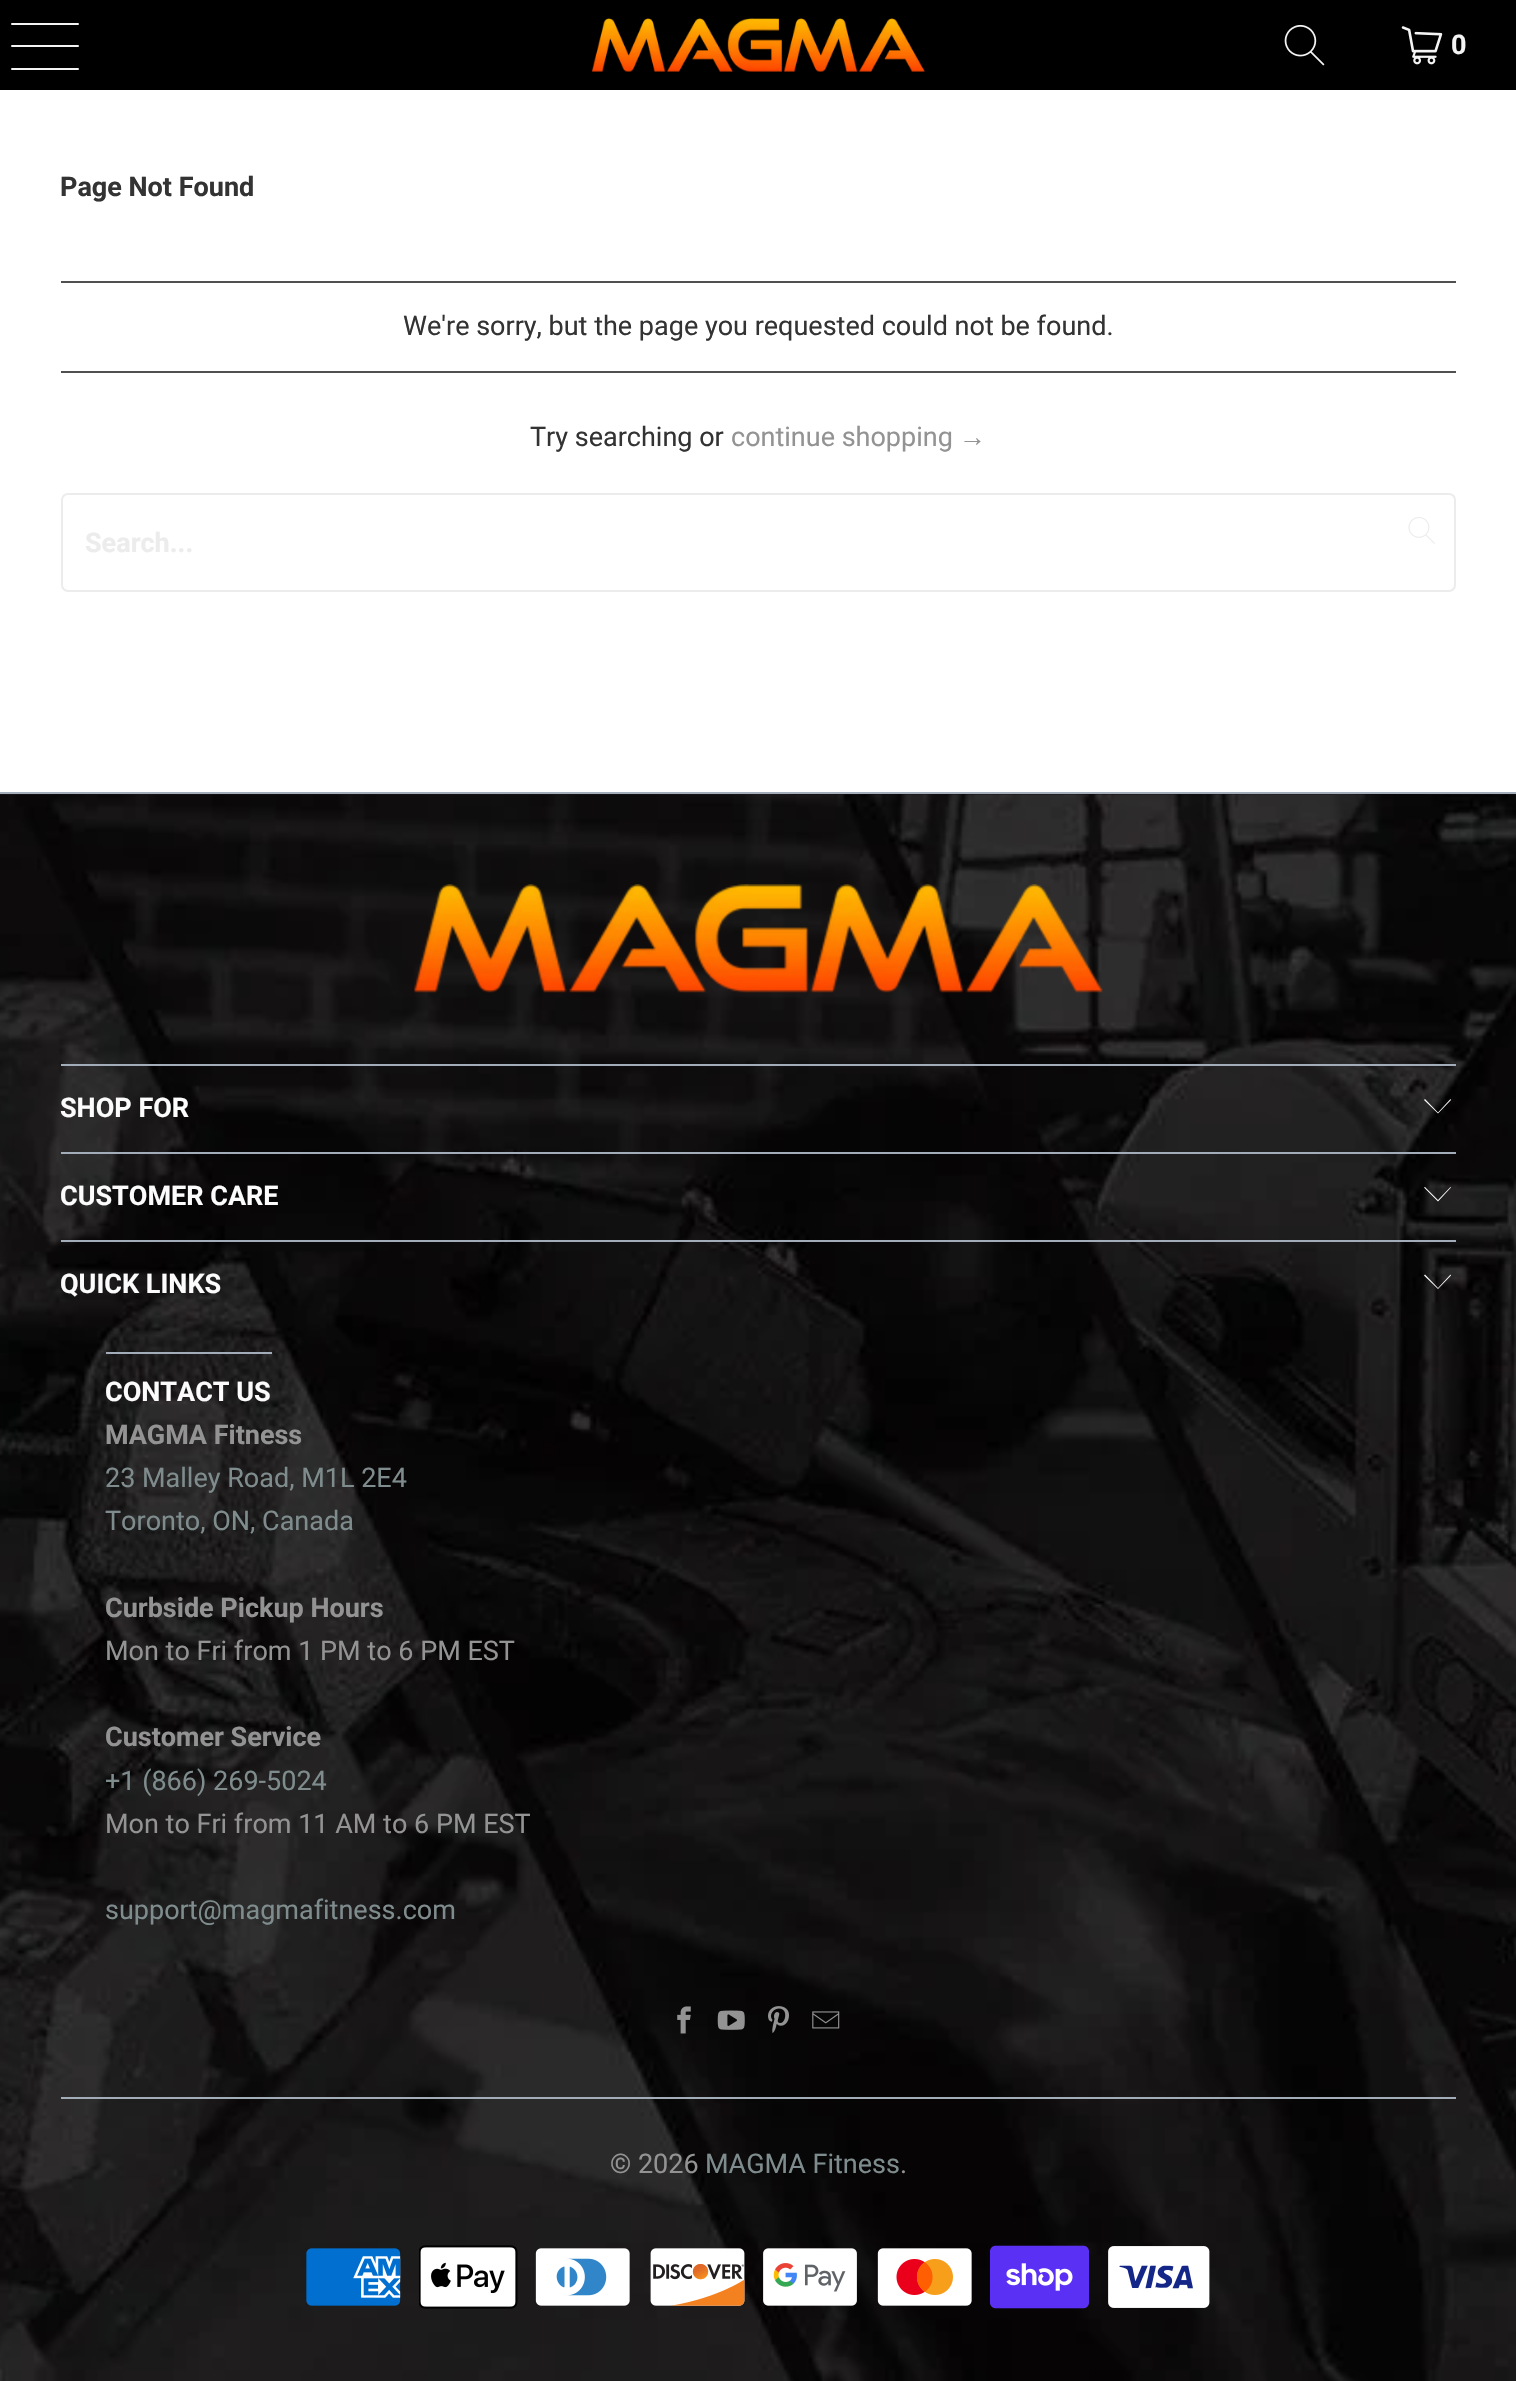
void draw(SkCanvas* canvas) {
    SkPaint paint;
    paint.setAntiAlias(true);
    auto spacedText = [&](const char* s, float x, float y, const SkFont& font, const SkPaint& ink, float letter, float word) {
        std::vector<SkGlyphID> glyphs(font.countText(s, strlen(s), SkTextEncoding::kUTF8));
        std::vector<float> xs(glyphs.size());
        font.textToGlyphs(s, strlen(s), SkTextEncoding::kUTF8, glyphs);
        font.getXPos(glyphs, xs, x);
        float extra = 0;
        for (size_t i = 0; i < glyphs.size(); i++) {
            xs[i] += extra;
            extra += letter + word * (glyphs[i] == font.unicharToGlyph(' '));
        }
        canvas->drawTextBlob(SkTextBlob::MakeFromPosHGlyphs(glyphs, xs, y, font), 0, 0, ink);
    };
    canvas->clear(0xFFFFFFFF);
    paint.setColor(0xFF000000);
    canvas->drawRect(SkRect::MakeXYWH(0, 0, 1516, 90), paint);
    paint.setColor(0xFFF4F4F4);
    canvas->drawRoundRect(SkRect::MakeXYWH(11, 23, 68, 2), 1, 1, paint);
    canvas->drawRoundRect(SkRect::MakeXYWH(11, 45, 68, 2), 1, 1, paint);
    canvas->drawRoundRect(SkRect::MakeXYWH(11, 68, 68, 2), 1, 1, paint);
    canvas->drawImageRect(SkImages::DeferredFromEncodedData(SkData::MakeFromFileName("img1.png")), SkRect::MakeXYWH(592, 18, 333, 54), SkSamplingOptions());
    canvas->drawImageRect(SkImages::DeferredFromEncodedData(SkData::MakeFromFileName("img2.png")), SkRect::MakeXYWH(1284, 24, 41, 42), SkSamplingOptions());
    canvas->drawImageRect(SkImages::DeferredFromEncodedData(SkData::MakeFromFileName("img3.png")), SkRect::MakeXYWH(1401, 26, 42, 39), SkSamplingOptions());
    SkFont font1(fontMgr->matchFamilyStyle("Roboto", SkFontStyle::Bold()), 27);
    font1.setSubpixel(true);
    spacedText("0", 1451, 54, font1, paint, 2, 0);
    paint.setColor(0xFF333333);
    canvas->drawString("Page Not Found", 60, 196, font1, paint);
    paint.setColor(0xFF505050);
    canvas->drawRect(SkRect::MakeXYWH(61, 281, 1395, 2), paint);
    canvas->drawRect(SkRect::MakeXYWH(61, 371, 1395, 2), paint);
    SkFont font2(fontMgr->matchFamilyStyle("Roboto", SkFontStyle::Normal()), 27);
    font2.setSubpixel(true);
    paint.setColor(0xFF333333);
    canvas->drawString("We're sorry, but the page you requested could not be found.", 403, 335, font2, paint);
    canvas->drawString("Try searching or", 530, 446, font2, paint);
    paint.setColor(0xFF939393);
    canvas->drawString("continue shopping", 731, 446, font2, paint);
    SkFont font3(fontMgr->matchFamilyStyle("Liberation Sans", SkFontStyle::Normal()), 27);
    font3.setSubpixel(true);
    canvas->drawString("→", 959, 446, font3, paint);
    paint.setStyle(SkPaint::kStroke_Style);
    paint.setStrokeWidth(2);
    paint.setColor(0xFFECECEC);
    canvas->drawRoundRect(SkRect::MakeXYWH(62, 494, 1393, 97), 6, 6, paint);
    paint.setStyle(SkPaint::kFill_Style);
    canvas->drawString("Search...", 85, 552, font1, paint);
    canvas->drawImageRect(SkImages::DeferredFromEncodedData(SkData::MakeFromFileName("img4.png")), SkRect::MakeXYWH(1408, 517, 27, 27), SkSamplingOptions());
    canvas->drawImageRect(SkImages::DeferredFromEncodedData(SkData::MakeFromFileName("img5.png")), SkRect::MakeXYWH(0, 794, 1516, 1587), SkSamplingOptions());
    paint.setColor(0xFFA2ADB9);
    canvas->drawRect(SkRect::MakeXYWH(0, 792, 1516, 2), paint);
    canvas->drawImageRect(SkImages::DeferredFromEncodedData(SkData::MakeFromFileName("img6.png")), SkRect::MakeXYWH(414, 884, 689, 109), SkSamplingOptions());
    canvas->drawRect(SkRect::MakeXYWH(61, 1064, 1395, 2), paint);
    paint.setColor(0xFFFCFCFC);
    canvas->drawString("SHOP FOR", 60, 1117, font1, paint);
    canvas->drawPath(SkPathBuilder().moveTo(1438, 1113.5f).lineTo(1424, 1100).lineTo(1425, 1099).lineTo(1438, 1112.5f).lineTo(1450.5f, 1099).lineTo(1451, 1100).close().detach(), paint);
    paint.setColor(0xFFA2ADB9);
    canvas->drawRect(SkRect::MakeXYWH(61, 1152, 1395, 2), paint);
    paint.setColor(0xFFFCFCFC);
    canvas->drawString("CUSTOMER CARE", 60, 1205, font1, paint);
    canvas->drawPath(SkPathBuilder().moveTo(1438, 1201.5f).lineTo(1424, 1187.5f).lineTo(1425, 1187).lineTo(1438, 1200).lineTo(1450.5f, 1187).lineTo(1451, 1187.5f).close().detach(), paint);
    paint.setColor(0xFFA2ADB9);
    canvas->drawRect(SkRect::MakeXYWH(61, 1240, 1395, 2), paint);
    paint.setColor(0xFFFCFCFC);
    canvas->drawString("QUICK LINKS", 60, 1293, font1, paint);
    canvas->drawPath(SkPathBuilder().moveTo(1438, 1289).lineTo(1424, 1275.5f).lineTo(1425, 1274.5f).lineTo(1438, 1288).lineTo(1450.5f, 1274.5f).lineTo(1451, 1275.5f).close().detach(), paint);
    canvas->drawString("CONTACT US", 105, 1401, font1, paint);
    paint.setColor(0xFFA2ADB9);
    canvas->drawRect(SkRect::MakeXYWH(106, 1352, 166, 2), paint);
    paint.setColor(0xFF939393);
    canvas->drawString("MAGMA Fitness", 105, 1444, font1, paint);
    paint.setColor(0xFF7F8C8D);
    canvas->drawString("23 Malley Road, M1L 2E4", 105, 1487, font2, paint);
    canvas->drawString("Toronto, ON, Canada", 105, 1530, font2, paint);
    paint.setColor(0xFF939393);
    canvas->drawString("Curbside Pickup Hours", 105, 1617, font1, paint);
    canvas->drawString("Mon to Fri from 1 PM to 6 PM EST", 105, 1660, font2, paint);
    canvas->drawString("Customer Service", 105, 1746, font1, paint);
    paint.setColor(0xFF7F8C8D);
    canvas->drawString("+1 (866) 269-5024", 105, 1790, font2, paint);
    paint.setColor(0xFF939393);
    canvas->drawString("Mon to Fri from 11 AM to 6 PM EST", 105, 1833, font2, paint);
    paint.setColor(0xFF7F8C8D);
    canvas->drawString("support@magmafitness.com", 105, 1919, font2, paint);
    canvas->drawImageRect(SkImages::DeferredFromEncodedData(SkData::MakeFromFileName("img7.png")), SkRect::MakeXYWH(677, 2006, 14, 28), SkSamplingOptions());
    canvas->drawImageRect(SkImages::DeferredFromEncodedData(SkData::MakeFromFileName("img8.png")), SkRect::MakeXYWH(717, 2010, 28, 20), SkSamplingOptions());
    canvas->drawImageRect(SkImages::DeferredFromEncodedData(SkData::MakeFromFileName("img9.png")), SkRect::MakeXYWH(768, 2006, 21, 27), SkSamplingOptions());
    canvas->drawImageRect(SkImages::DeferredFromEncodedData(SkData::MakeFromFileName("img10.png")), SkRect::MakeXYWH(812, 2011, 28, 18), SkSamplingOptions());
    paint.setColor(0xFFA2ADB9);
    canvas->drawRect(SkRect::MakeXYWH(61, 2097, 1395, 2), paint);
    paint.setColor(0xFF939393);
    canvas->drawString("© 2026", 610, 2173, font2, paint);
    paint.setColor(0xFF7F8C8D);
    canvas->drawString("MAGMA Fitness", 705, 2173, font2, paint);
    paint.setColor(0xFF939393);
    canvas->drawString(".", 900, 2173, font2, paint);
    canvas->drawImageRect(SkImages::DeferredFromEncodedData(SkData::MakeFromFileName("img11.png")), SkRect::MakeXYWH(306, 2248, 95, 58), SkSamplingOptions());
    canvas->drawImageRect(SkImages::DeferredFromEncodedData(SkData::MakeFromFileName("img12.png")), SkRect::MakeXYWH(419, 2245, 99, 64), SkSamplingOptions());
    canvas->drawImageRect(SkImages::DeferredFromEncodedData(SkData::MakeFromFileName("img13.png")), SkRect::MakeXYWH(535, 2248, 95, 58), SkSamplingOptions());
    canvas->drawImageRect(SkImages::DeferredFromEncodedData(SkData::MakeFromFileName("img14.png")), SkRect::MakeXYWH(650, 2248, 95, 58), SkSamplingOptions());
    canvas->drawImageRect(SkImages::DeferredFromEncodedData(SkData::MakeFromFileName("img15.png")), SkRect::MakeXYWH(763, 2248, 94, 58), SkSamplingOptions());
    canvas->drawImageRect(SkImages::DeferredFromEncodedData(SkData::MakeFromFileName("img16.png")), SkRect::MakeXYWH(877, 2248, 95, 58), SkSamplingOptions());
    canvas->drawImageRect(SkImages::DeferredFromEncodedData(SkData::MakeFromFileName("img17.png")), SkRect::MakeXYWH(990, 2245, 99, 64), SkSamplingOptions());
    canvas->drawImageRect(SkImages::DeferredFromEncodedData(SkData::MakeFromFileName("img18.png")), SkRect::MakeXYWH(1108, 2246, 102, 62), SkSamplingOptions());
}
